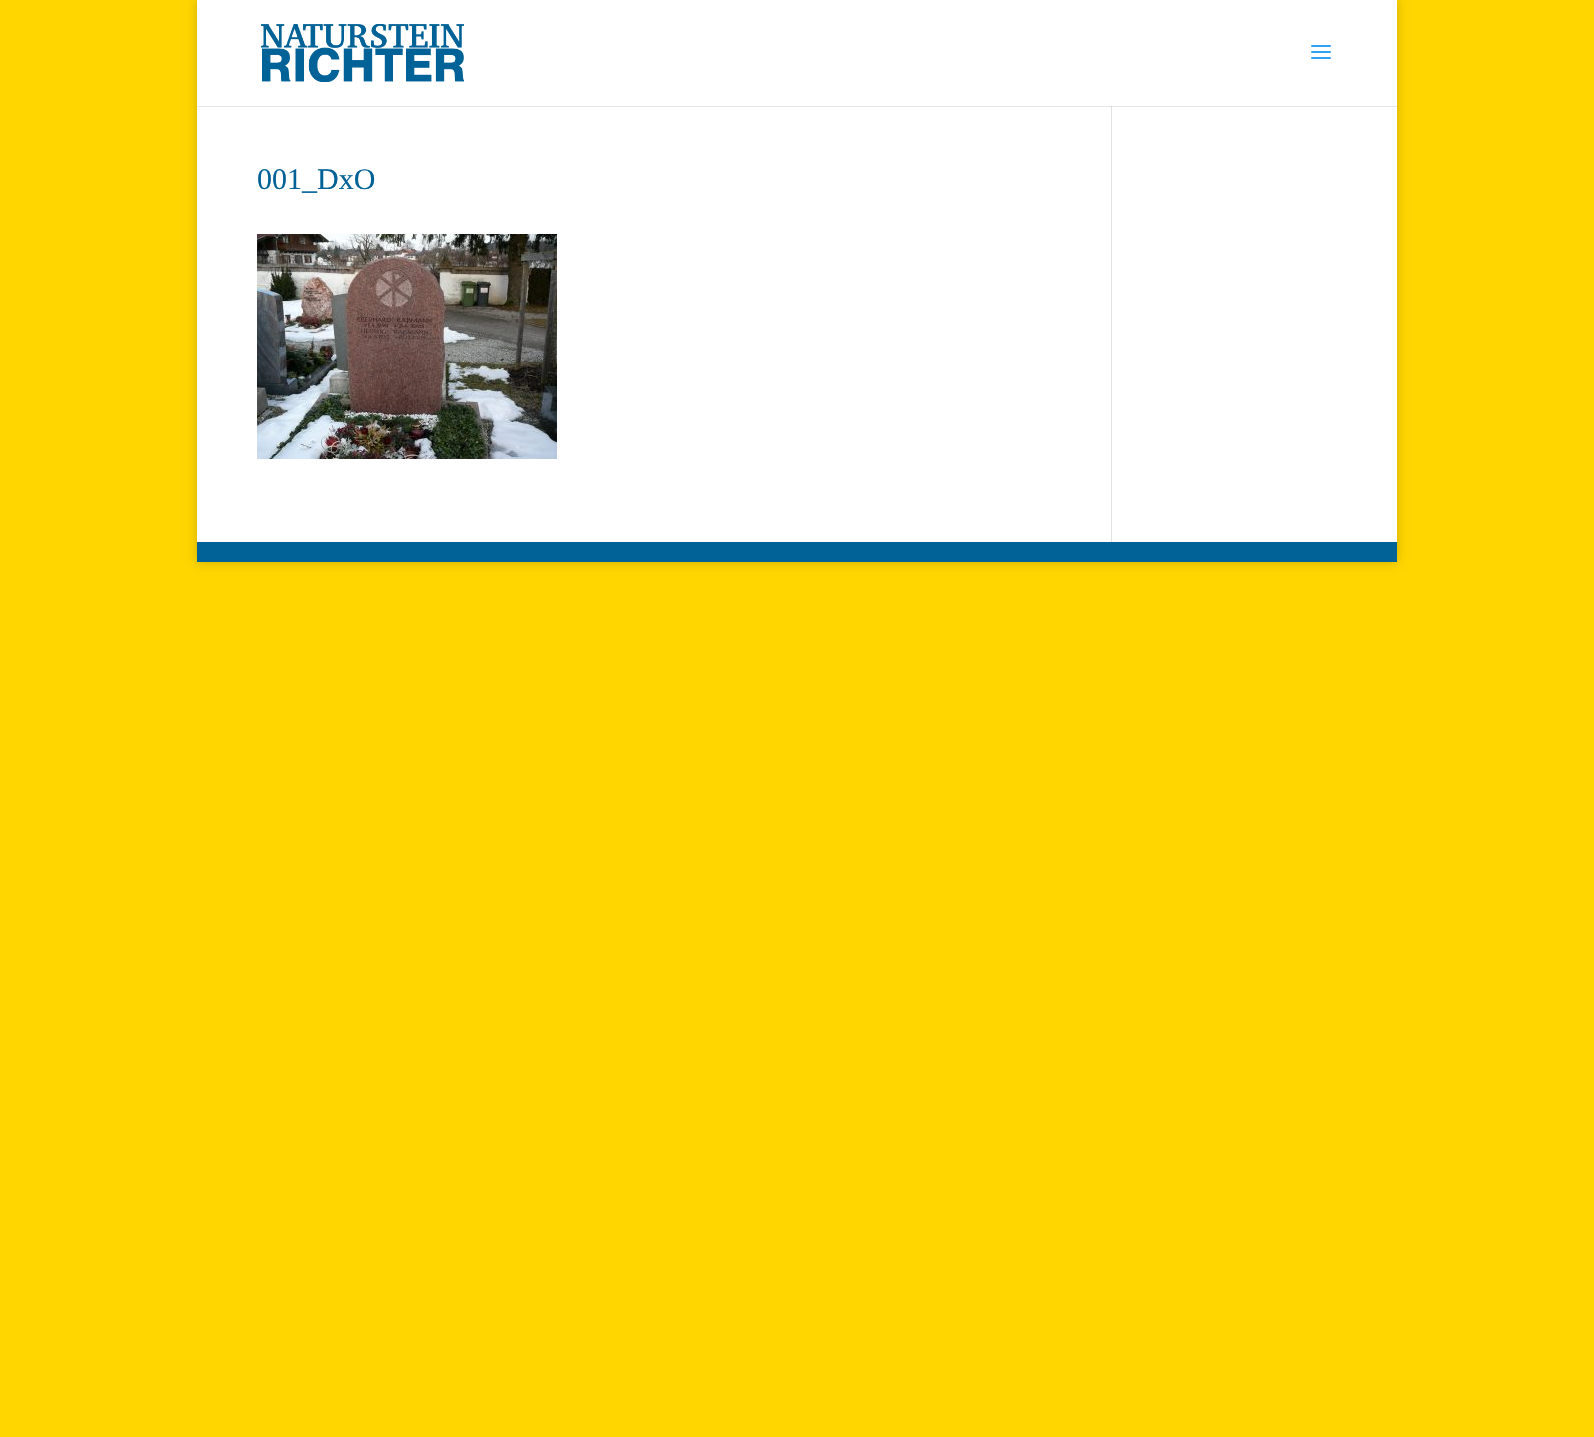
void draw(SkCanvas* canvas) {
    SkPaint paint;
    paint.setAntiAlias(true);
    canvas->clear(0xFFFFD600);
    paint.setColor(0x33000000);
    paint.setMaskFilter(SkMaskFilter::MakeBlur(kNormal_SkBlurStyle, 5));
    canvas->drawRect(SkRect::MakeXYWH(197, 0, 1200, 562), paint);
    paint.setMaskFilter(nullptr);
    paint.setColor(0xFFFFFFFF);
    canvas->drawRect(SkRect::MakeXYWH(197, 0, 1200, 106), paint);
    canvas->drawImageRect(SkImages::DeferredFromEncodedData(SkData::MakeFromFileName("img1.png")), SkRect::MakeXYWH(261, 24, 203, 58), SkSamplingOptions());
    canvas->drawImageRect(SkImages::DeferredFromEncodedData(SkData::MakeFromFileName("img2.png")), SkRect::MakeXYWH(1311, 45, 20, 14), SkSamplingOptions());
    canvas->drawRect(SkRect::MakeXYWH(197, 107, 1200, 435), paint);
    paint.setColor(0xFFE6E6E6);
    canvas->drawRect(SkRect::MakeXYWH(197, 106, 1200, 1), paint);
    SkFont font1(fontMgr->matchFamilyStyle("Liberation Serif", SkFontStyle::Normal()), 30);
    font1.setSubpixel(true);
    paint.setColor(0xFF006296);
    canvas->drawString("001_DxO", 257, 189, font1, paint);
    canvas->drawImageRect(SkImages::DeferredFromEncodedData(SkData::MakeFromFileName("img3.png")), SkRect::MakeXYWH(257, 234, 300, 225), SkSamplingOptions());
    paint.setColor(0xFFE2E2E2);
    canvas->drawRect(SkRect::MakeXYWH(1111, 106, 1, 436), paint);
    paint.setColor(0xFFCBCBCB);
    canvas->drawRect(SkRect::MakeXYWH(1111, 106, 1, 1), paint);
    paint.setColor(0xFF006296);
    canvas->drawRect(SkRect::MakeXYWH(197, 542, 1200, 20), paint);
}
